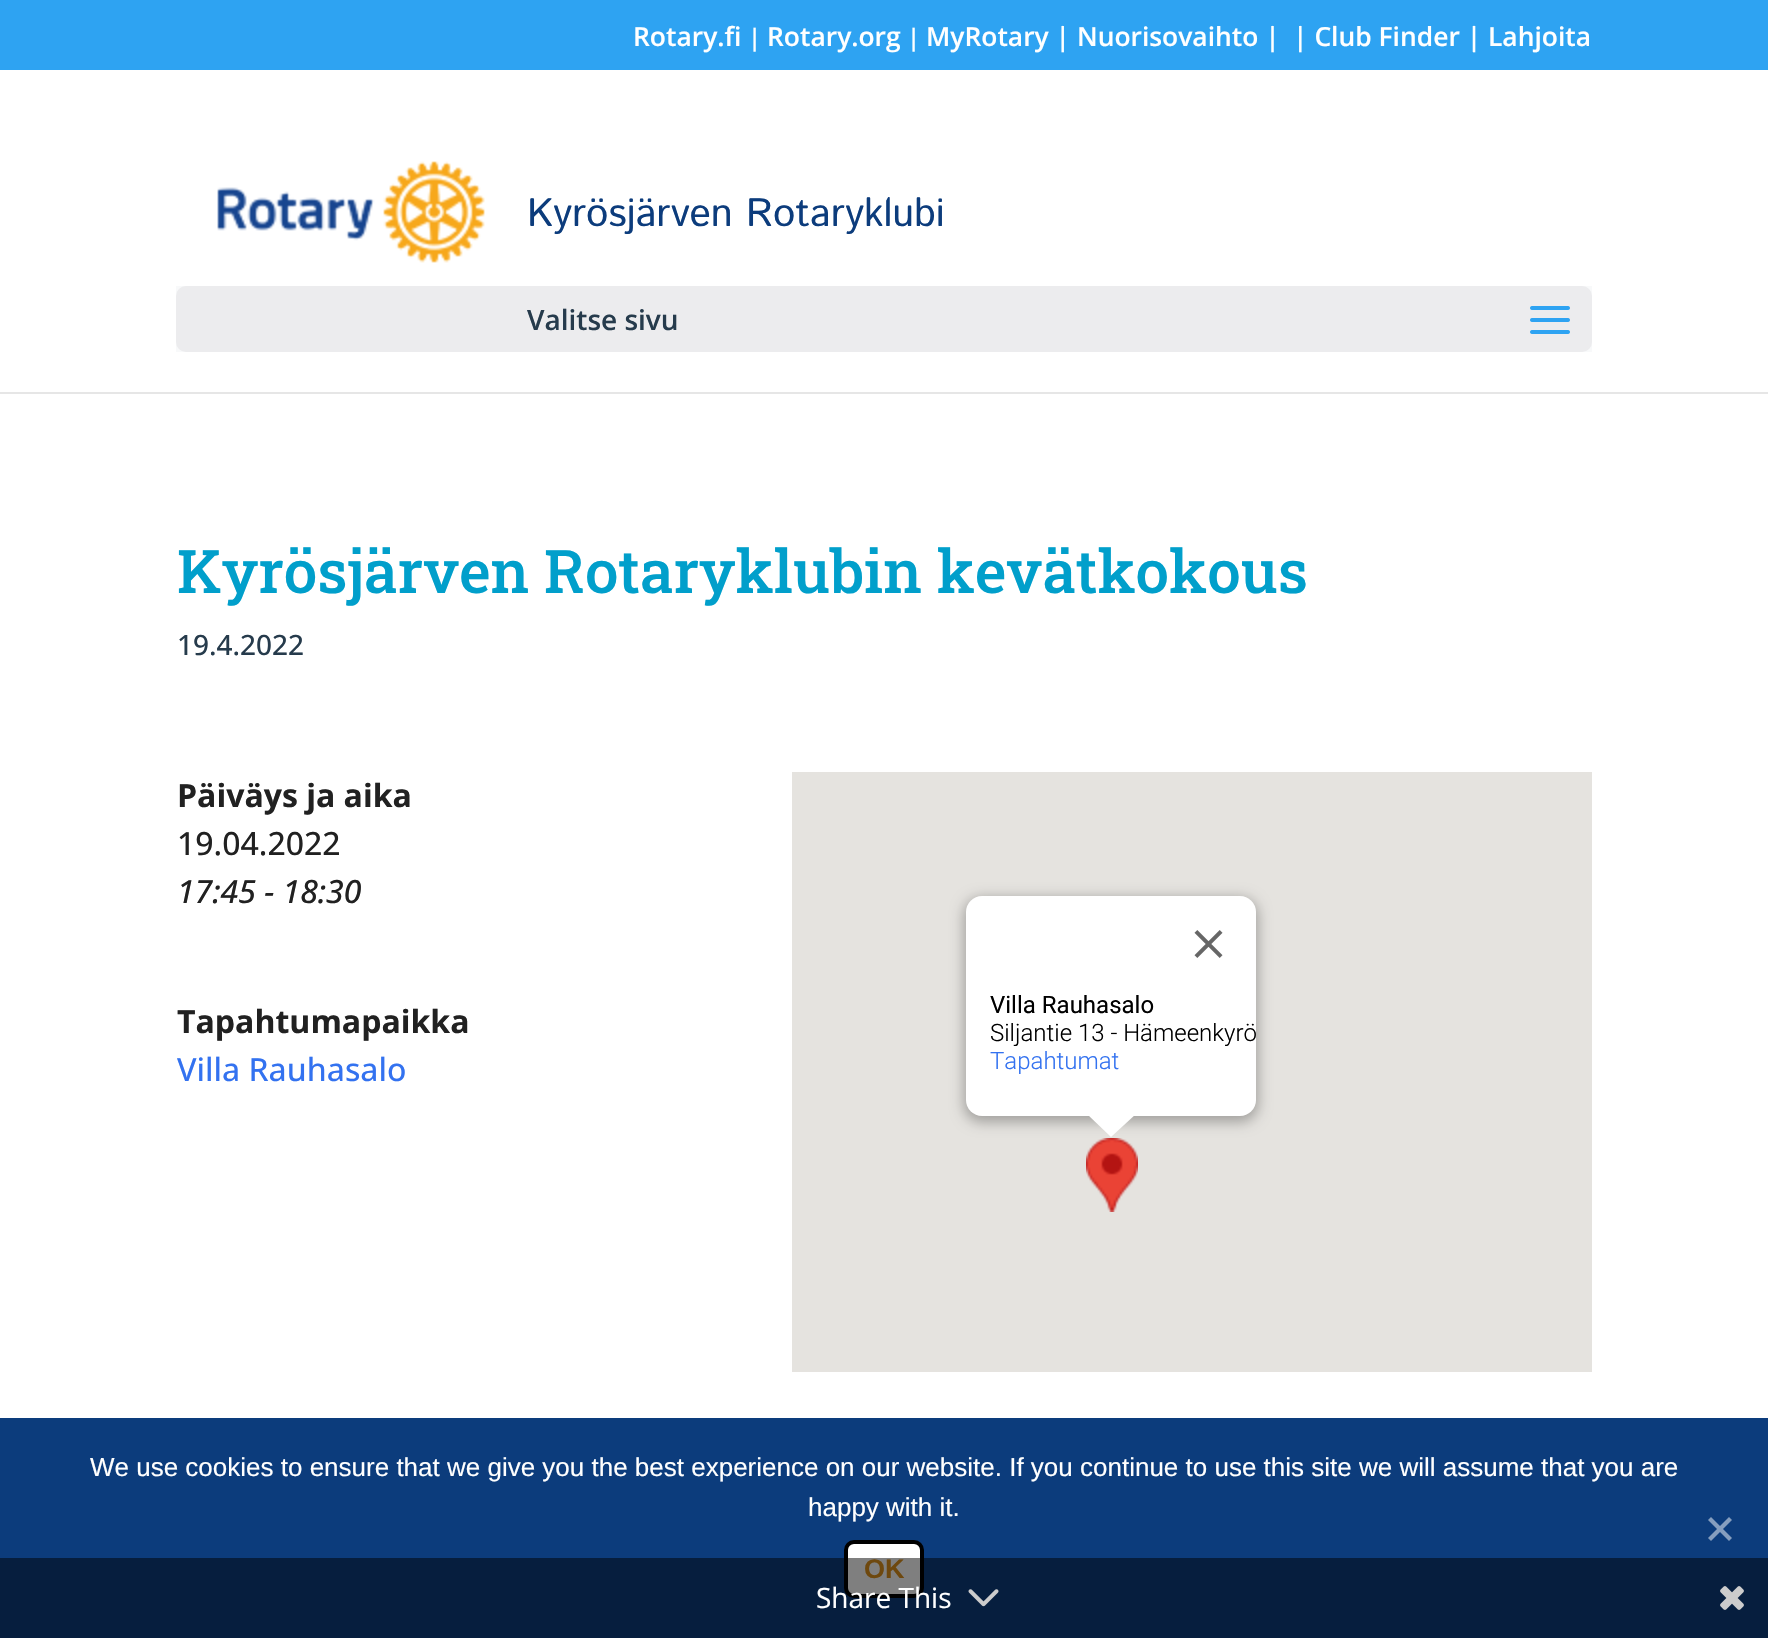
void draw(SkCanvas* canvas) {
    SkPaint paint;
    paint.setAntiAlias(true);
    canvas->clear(0xFFFFFFFF);
    paint.setColor(0xFF2EA3F2);
    canvas->drawRect(SkRect::MakeXYWH(0, 0, 1768, 70), paint);
    SkFont font1(fontMgr->matchFamilyStyle("Open Sans", SkFontStyle(600, SkFontStyle::kNormal_Width, SkFontStyle::kUpright_Slant)), 26.4f);
    font1.setSubpixel(true);
    paint.setColor(0xFFFFFFFF);
    canvas->drawString("Rotary.fi", 633, 46, font1, paint);
    SkFont font2(fontMgr->matchFamilyStyle("Open Sans", SkFontStyle(600, SkFontStyle::kNormal_Width, SkFontStyle::kUpright_Slant)), 24);
    font2.setSubpixel(true);
    canvas->drawString("|", 748, 46, font2, paint);
    canvas->drawString("Rotary.org", 767, 46, font1, paint);
    canvas->drawString("|", 907, 46, font2, paint);
    canvas->drawString("MyRotary | Nuorisovaihto |", 926, 46, font1, paint);
    canvas->drawString("| Club Finder | Lahjoita", 1293, 46, font1, paint);
    paint.setColor(0xFFE6E6E6);
    canvas->drawRect(SkRect::MakeXYWH(0, 392, 1768, 2), paint);
    canvas->drawImageRect(SkImages::DeferredFromEncodedData(SkData::MakeFromFileName("img1.png")), SkRect::MakeXYWH(217, 161, 268, 102), SkSamplingOptions());
    SkFont font3(fontMgr->matchFamilyStyle("Istok Web", SkFontStyle::Normal()), 39.75f);
    font3.setSubpixel(true);
    paint.setColor(0xFF0C3C7C);
    canvas->drawString("Kyrösjärven Rotaryklubi", 527, 226, font3, paint);
    paint.setColor(0xFFF8F9FA);
    canvas->drawRect(SkRect::MakeXYWH(176, 286, 1416, 66), paint);
    paint.setColor(0xFFECECEE);
    canvas->drawRoundRect(SkRect::MakeXYWH(176, 286, 1416, 66), 10, 10, paint);
    SkFont font4(fontMgr->matchFamilyStyle("Open Sans", SkFontStyle(600, SkFontStyle::kNormal_Width, SkFontStyle::kUpright_Slant)), 28);
    font4.setSubpixel(true);
    paint.setColor(0xFF263B4C);
    canvas->drawString("Valitse sivu", 527, 330, font4, paint);
    canvas->drawImageRect(SkImages::DeferredFromEncodedData(SkData::MakeFromFileName("img2.png")), SkRect::MakeXYWH(1530, 306, 40, 28), SkSamplingOptions());
    SkFont font5(fontMgr->matchFamilyStyle("Roboto Slab", SkFontStyle(500, SkFontStyle::kNormal_Width, SkFontStyle::kUpright_Slant)), 60);
    font5.setSubpixel(true);
    paint.setColor(0xFF019FCB);
    canvas->drawString("Kyrösjärven Rotaryklubin kevätkokous", 177, 593, font5, paint);
    SkFont font6(fontMgr->matchFamilyStyle("Open Sans", SkFontStyle(500, SkFontStyle::kNormal_Width, SkFontStyle::kUpright_Slant)), 28);
    font6.setSubpixel(true);
    paint.setColor(0xFF263B4C);
    canvas->drawString("19.4.2022", 177, 655, font6, paint);
    SkFont font7(fontMgr->matchFamilyStyle("Open Sans", SkFontStyle::Bold()), 32);
    font7.setSubpixel(true);
    paint.setColor(0xFF212121);
    canvas->drawString("Päiväys ja aika", 177, 807, font7, paint);
    SkFont font8(fontMgr->matchFamilyStyle("Open Sans", SkFontStyle(500, SkFontStyle::kNormal_Width, SkFontStyle::kUpright_Slant)), 32);
    font8.setSubpixel(true);
    canvas->drawString("19.04.2022", 177, 855, font8, paint);
    SkFont font9(fontMgr->matchFamilyStyle("Open Sans", SkFontStyle(500, SkFontStyle::kNormal_Width, SkFontStyle::kItalic_Slant)), 32);
    font9.setSubpixel(true);
    canvas->drawString("17:45 - 18:30", 177, 903, font9, paint);
    canvas->drawString("Tapahtumapaikka", 177, 1033, font7, paint);
    paint.setColor(0xFF3372F0);
    canvas->drawString("Villa Rauhasalo", 177, 1081, font8, paint);
    paint.setColor(0xFFE5E3DF);
    canvas->drawRect(SkRect::MakeXYWH(792, 772, 800, 600), paint);
    canvas->drawImageRect(SkImages::DeferredFromEncodedData(SkData::MakeFromFileName("img4.png")), SkRect::MakeXYWH(1086, 1138, 52, 74), SkSamplingOptions());
    paint.setColor(0x4D000000);
    paint.setMaskFilter(SkMaskFilter::MakeBlur(kNormal_SkBlurStyle, 7));
    canvas->drawRoundRect(SkRect::MakeXYWH(964, 898, 294, 224), 18, 18, paint);
    paint.setMaskFilter(nullptr);
    paint.setColor(0xFFFFFFFF);
    canvas->drawRoundRect(SkRect::MakeXYWH(966, 896, 290, 220), 16, 16, paint);
    canvas->drawImageRect(SkImages::DeferredFromEncodedData(SkData::MakeFromFileName("img3.png")), SkRect::MakeXYWH(1194, 930, 29, 28), SkSamplingOptions());
    SkFont font10(fontMgr->matchFamilyStyle("Roboto", SkFontStyle::Normal()), 24);
    font10.setSubpixel(true);
    paint.setColor(0xFF000000);
    canvas->drawString("Villa Rauhasalo", 990, 1013, font10, paint);
    SkFont font11(fontMgr->matchFamilyStyle("Roboto", SkFontStyle(300, SkFontStyle::kNormal_Width, SkFontStyle::kUpright_Slant)), 24);
    font11.setSubpixel(true);
    canvas->drawString("Siljantie 13 - Hämeenkyrö", 990, 1041, font11, paint);
    paint.setColor(0xFF3372F0);
    canvas->drawString("Tapahtumat", 990, 1069, font11, paint);
    paint.setColor(0xFFFFFFFF);
    canvas->drawPath(SkPathBuilder().moveTo(1088, 1114).lineTo(1088, 1115).lineTo(1111, 1137).lineTo(1136, 1114).close().detach(), paint);
    paint.setColor(0xFF0C3C7C);
    canvas->drawRect(SkRect::MakeXYWH(0, 1418, 1768, 220), paint);
    SkFont font12(fontMgr->matchFamilyStyle("Liberation Sans", SkFontStyle::Normal()), 26);
    font12.setSubpixel(true);
    paint.setColor(0xFFFFFFFF);
    canvas->drawString("We use cookies to ensure that we give you the best experience on our website. If you continue to use this site we will assume that you are", 90, 1476, font12, paint);
    canvas->drawString("happy with it.", 808, 1516, font12, paint);
    paint.setColor(0xFF869EBE);
    canvas->drawPath(SkPathBuilder().moveTo(1729, 1517).lineTo(1732, 1520).lineTo(1711, 1541).lineTo(1708, 1538).close().detach(), paint);
    canvas->drawPath(SkPathBuilder().moveTo(1708, 1520).lineTo(1711, 1517).lineTo(1732, 1538).lineTo(1729, 1541).close().detach(), paint);
    paint.setColor(0xFFFFFFFF);
    canvas->drawRoundRect(SkRect::MakeXYWH(846, 1542, 76, 54), 8, 8, paint);
    paint.setStyle(SkPaint::kStroke_Style);
    paint.setStrokeWidth(4);
    paint.setColor(0xFF000000);
    canvas->drawRoundRect(SkRect::MakeXYWH(846, 1542, 76, 54), 8, 8, paint);
    SkFont font13(fontMgr->matchFamilyStyle("Liberation Sans", SkFontStyle::Bold()), 27);
    font13.setSubpixel(true);
    paint.setStyle(SkPaint::kFill_Style);
    paint.setColor(0xFFDC911B);
    canvas->drawString("OK", 864, 1578, font13, paint);
    paint.setColor(0x80000000);
    canvas->drawRect(SkRect::MakeXYWH(0, 1558, 1768, 80), paint);
    SkFont font14(fontMgr->matchFamilyStyle("Open Sans", SkFontStyle::Normal()), 28);
    font14.setSubpixel(true);
    paint.setColor(0xFFFFFFFF);
    canvas->drawString("Share This", 816, 1608, font14, paint);
    canvas->drawImageRect(SkImages::DeferredFromEncodedData(SkData::MakeFromFileName("img5.png")), SkRect::MakeXYWH(968, 1589, 31, 18), SkSamplingOptions());
    canvas->drawImageRect(SkImages::DeferredFromEncodedData(SkData::MakeFromFileName("img6.png")), SkRect::MakeXYWH(1720, 1586, 24, 24), SkSamplingOptions());
}
